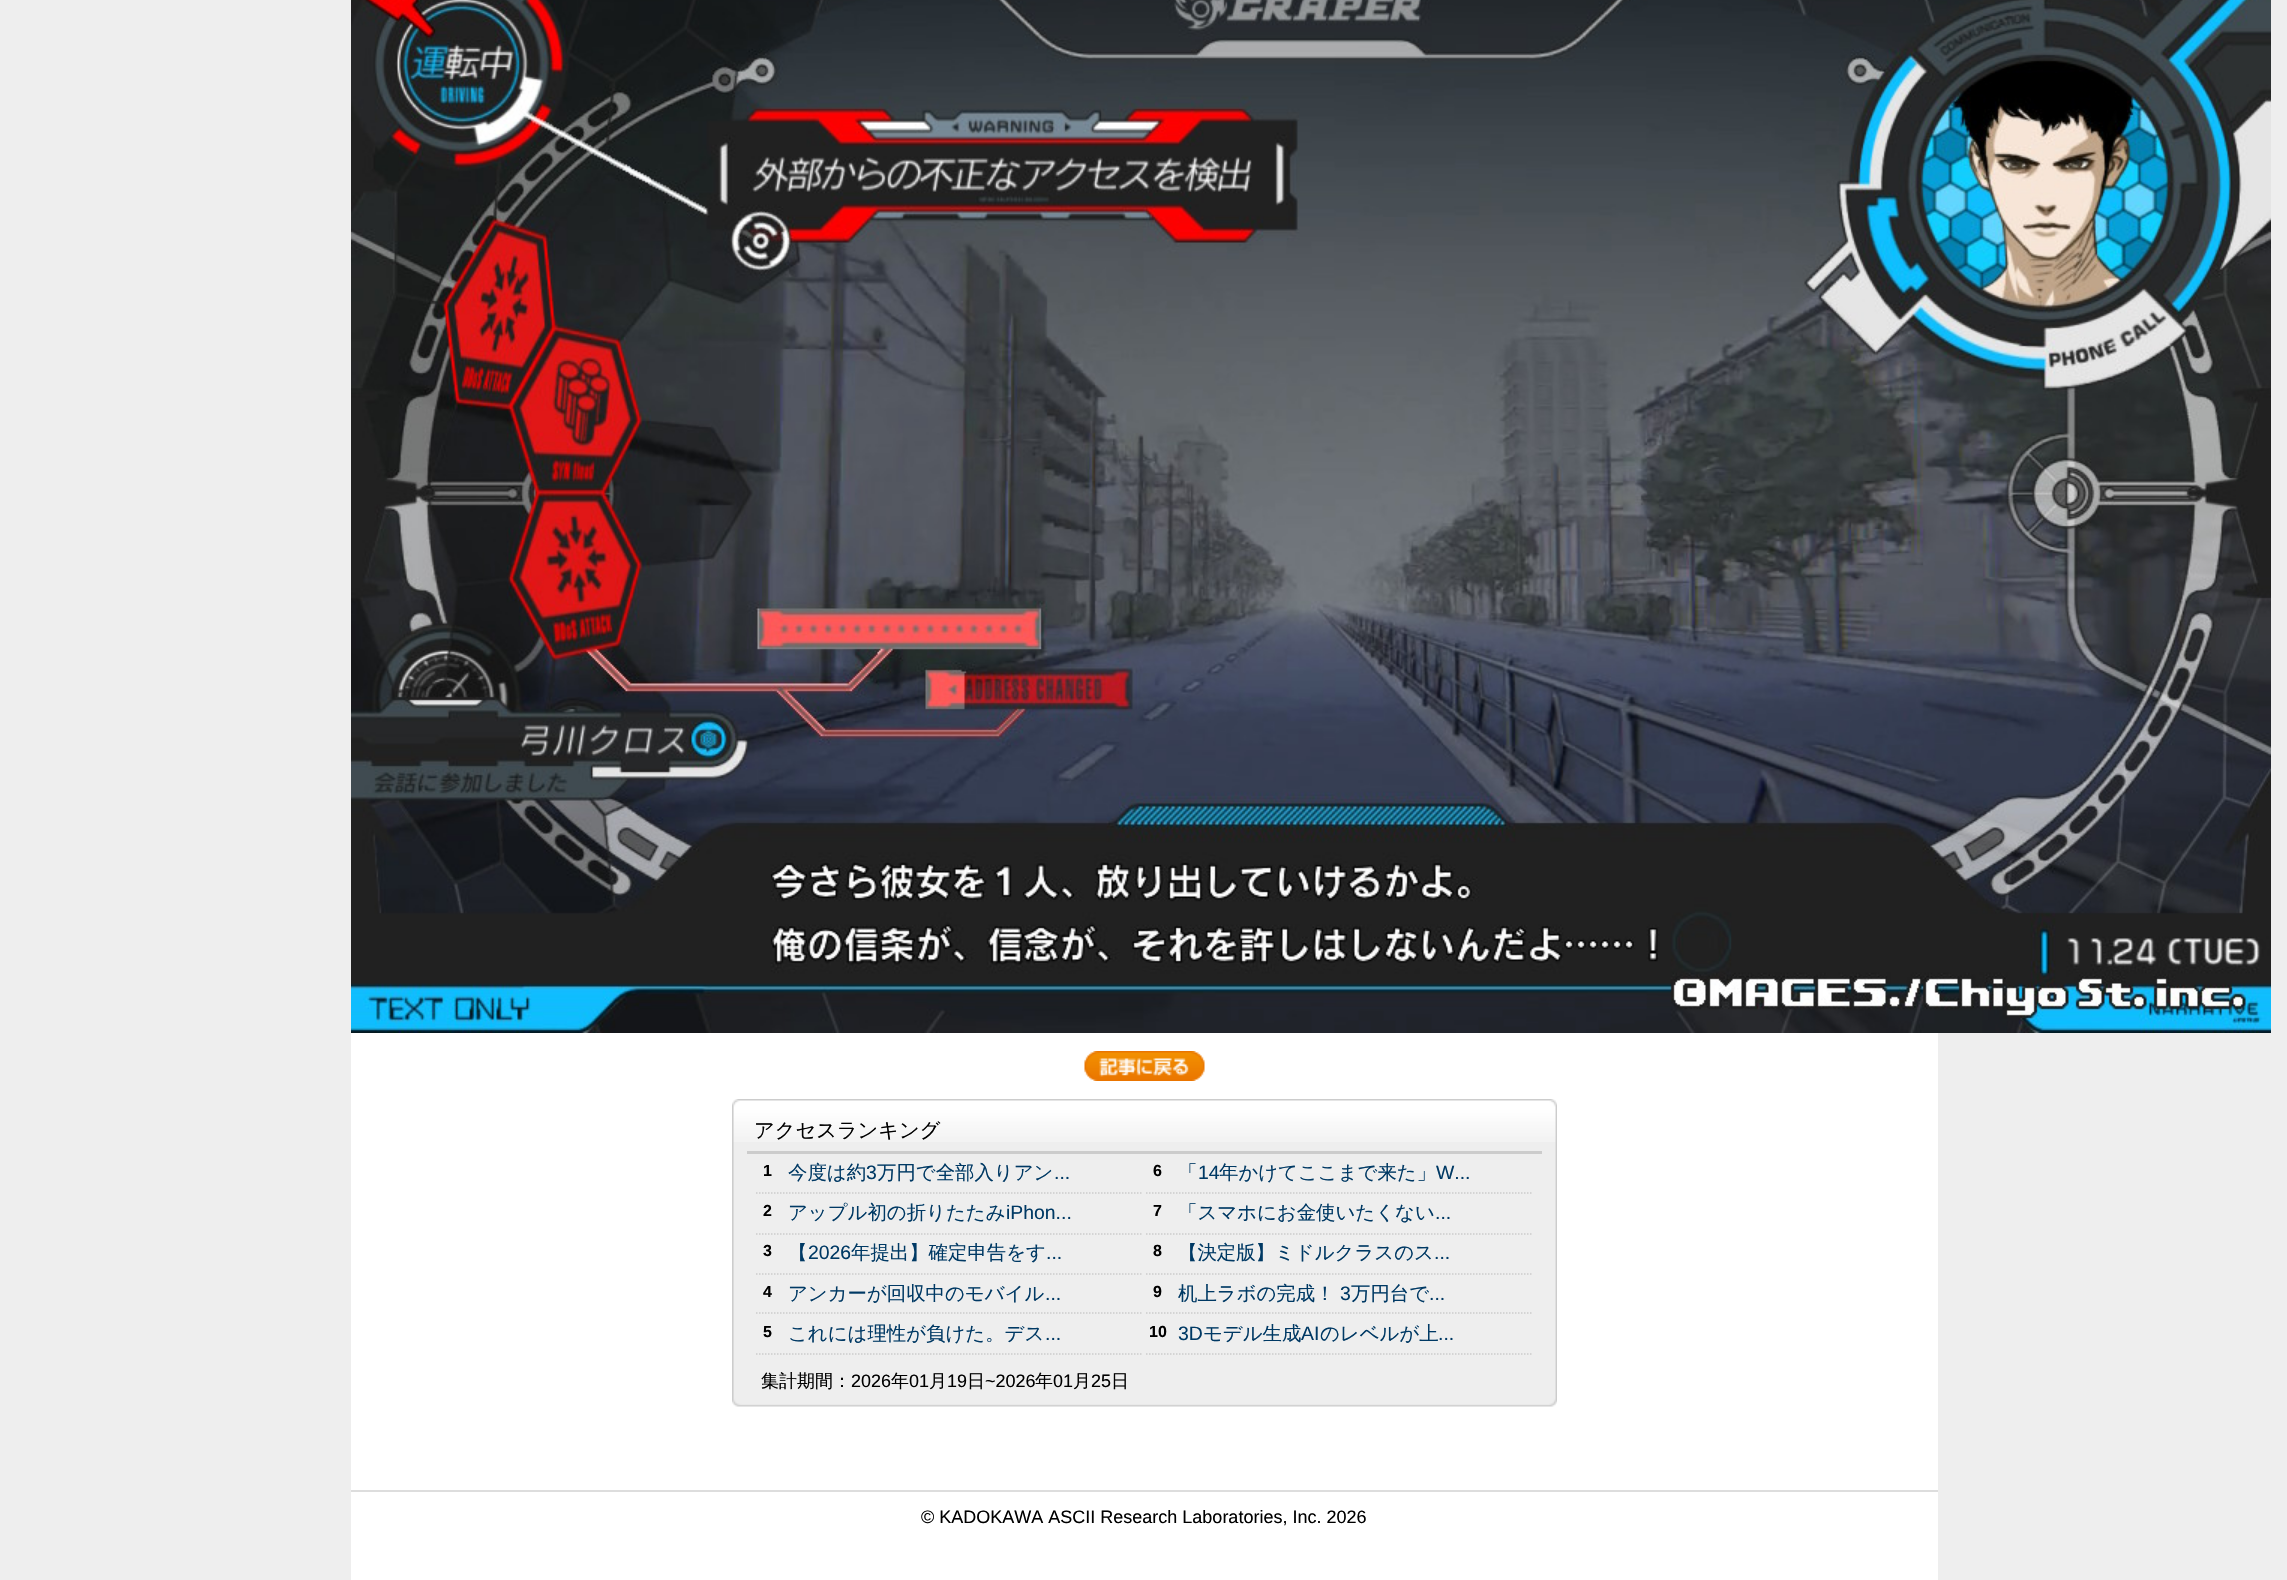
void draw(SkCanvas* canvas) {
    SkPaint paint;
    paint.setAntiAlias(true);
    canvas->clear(0xFFEEEEEE);
    paint.setColor(0xFFFFFFFF);
    canvas->drawRect(SkRect::MakeXYWH(351, 1033, 1587, 547), paint);
    canvas->drawImageRect(SkImages::DeferredFromEncodedData(SkData::MakeFromFileName("img1.png")), SkRect::MakeXYWH(351, 0, 1920, 1033), SkSamplingOptions());
    canvas->drawImageRect(SkImages::DeferredFromEncodedData(SkData::MakeFromFileName("img2.png")), SkRect::MakeXYWH(1084, 1051, 121, 30), SkSamplingOptions());
    canvas->drawImageRect(SkImages::DeferredFromEncodedData(SkData::MakeFromFileName("img3.png")), SkRect::MakeXYWH(732, 1142, 825, 265), SkSamplingOptions());
    canvas->drawImageRect(SkImages::DeferredFromEncodedData(SkData::MakeFromFileName("img4.png")), SkRect::MakeXYWH(732, 1099, 825, 43), SkSamplingOptions());
    paint.setColor(0xFFCCCCCC);
    canvas->drawRect(SkRect::MakeXYWH(747, 1151, 795, 3), paint);
    SkFont font1(fontMgr->matchFamilyStyle("WenQuanYi Zen Hei", SkFontStyle(500, SkFontStyle::kNormal_Width, SkFontStyle::kUpright_Slant)), 20.25f);
    font1.setSubpixel(true);
    paint.setColor(0xFF000000);
    canvas->drawString("アクセスランキング", 754, 1137, font1, paint);
    paint.setStyle(SkPaint::kStroke_Style);
    paint.setStrokeWidth(1.5f);
    paint.setColor(0xFFCCCCCC);
    paint.setPathEffect(SkDashPathEffect::Make({{1.5f, 1.5f}}, 0));
    canvas->drawPath(SkPathBuilder().moveTo(756, 1193).lineTo(1143, 1193).detach(), paint);
    paint.setPathEffect(nullptr);
    SkFont font2(fontMgr->matchFamilyStyle("Liberation Sans", SkFontStyle::Bold()), 16);
    font2.setSubpixel(true);
    paint.setStyle(SkPaint::kFill_Style);
    paint.setColor(0xFF000000);
    canvas->drawString("1", 763, 1176, font2, paint);
    SkFont font3(fontMgr->matchFamilyStyle("WenQuanYi Zen Hei", SkFontStyle(500, SkFontStyle::kNormal_Width, SkFontStyle::kUpright_Slant)), 19.4f);
    font3.setSubpixel(true);
    paint.setColor(0xFF003964);
    canvas->drawString("今度は約", 788, 1179, font3, paint);
    SkFont font4(fontMgr->matchFamilyStyle("Liberation Sans", SkFontStyle::Normal()), 19.4f);
    font4.setSubpixel(true);
    canvas->drawString("3", 866, 1179, font4, paint);
    canvas->drawString("万円で全部入りアン", 877, 1179, font3, paint);
    canvas->drawString("...", 1054, 1179, font4, paint);
    paint.setStyle(SkPaint::kStroke_Style);
    paint.setColor(0xFFCCCCCC);
    paint.setPathEffect(SkDashPathEffect::Make({{1.5f, 1.5f}}, 0));
    canvas->drawPath(SkPathBuilder().moveTo(756, 1234).lineTo(1143, 1234).detach(), paint);
    paint.setPathEffect(nullptr);
    paint.setStyle(SkPaint::kFill_Style);
    paint.setColor(0xFF000000);
    canvas->drawString("2", 763, 1216, font2, paint);
    paint.setColor(0xFF003964);
    canvas->drawString("アップル初の折りたたみ", 788, 1219, font3, paint);
    canvas->drawString("iPhon...", 1006, 1219, font4, paint);
    paint.setStyle(SkPaint::kStroke_Style);
    paint.setColor(0xFFCCCCCC);
    paint.setPathEffect(SkDashPathEffect::Make({{1.5f, 1.5f}}, 0));
    canvas->drawPath(SkPathBuilder().moveTo(756, 1274).lineTo(1143, 1274).detach(), paint);
    paint.setPathEffect(nullptr);
    paint.setStyle(SkPaint::kFill_Style);
    paint.setColor(0xFF000000);
    canvas->drawString("3", 763, 1256, font2, paint);
    paint.setColor(0xFF003964);
    canvas->drawString("【", 788, 1259, font3, paint);
    canvas->drawString("2026", 808, 1259, font4, paint);
    canvas->drawString("年提出】確定申告をす", 851, 1259, font3, paint);
    canvas->drawString("...", 1046, 1259, font4, paint);
    paint.setStyle(SkPaint::kStroke_Style);
    paint.setColor(0xFFCCCCCC);
    paint.setPathEffect(SkDashPathEffect::Make({{1.5f, 1.5f}}, 0));
    canvas->drawPath(SkPathBuilder().moveTo(756, 1313).lineTo(1143, 1313).detach(), paint);
    paint.setPathEffect(nullptr);
    paint.setStyle(SkPaint::kFill_Style);
    paint.setColor(0xFF000000);
    canvas->drawString("4", 763, 1297, font2, paint);
    paint.setColor(0xFF003964);
    canvas->drawString("アンカーが回収中のモバイル", 788, 1300, font3, paint);
    canvas->drawString("...", 1045, 1300, font4, paint);
    paint.setStyle(SkPaint::kStroke_Style);
    paint.setColor(0xFFCCCCCC);
    paint.setPathEffect(SkDashPathEffect::Make({{1.5f, 1.5f}}, 0));
    canvas->drawPath(SkPathBuilder().moveTo(756, 1354).lineTo(1143, 1354).detach(), paint);
    paint.setPathEffect(nullptr);
    paint.setStyle(SkPaint::kFill_Style);
    paint.setColor(0xFF000000);
    canvas->drawString("5", 763, 1337, font2, paint);
    paint.setColor(0xFF003964);
    canvas->drawString("これには理性が負けた。デス", 788, 1340, font3, paint);
    canvas->drawString("...", 1045, 1340, font4, paint);
    paint.setStyle(SkPaint::kStroke_Style);
    paint.setColor(0xFFCCCCCC);
    paint.setPathEffect(SkDashPathEffect::Make({{1.5f, 1.5f}}, 0));
    canvas->drawPath(SkPathBuilder().moveTo(1146, 1193).lineTo(1533, 1193).detach(), paint);
    paint.setPathEffect(nullptr);
    paint.setStyle(SkPaint::kFill_Style);
    paint.setColor(0xFF000000);
    canvas->drawString("6", 1153, 1176, font2, paint);
    paint.setColor(0xFF003964);
    canvas->drawString("「", 1178, 1179, font3, paint);
    canvas->drawString("14", 1198, 1179, font4, paint);
    canvas->drawString("年かけてここまで来た」", 1219, 1179, font3, paint);
    canvas->drawString("W...", 1436, 1179, font4, paint);
    paint.setStyle(SkPaint::kStroke_Style);
    paint.setColor(0xFFCCCCCC);
    paint.setPathEffect(SkDashPathEffect::Make({{1.5f, 1.5f}}, 0));
    canvas->drawPath(SkPathBuilder().moveTo(1146, 1234).lineTo(1533, 1234).detach(), paint);
    paint.setPathEffect(nullptr);
    paint.setStyle(SkPaint::kFill_Style);
    paint.setColor(0xFF000000);
    canvas->drawString("7", 1153, 1216, font2, paint);
    paint.setColor(0xFF003964);
    canvas->drawString("「スマホにお金使いたくない", 1178, 1219, font3, paint);
    canvas->drawString("...", 1435, 1219, font4, paint);
    paint.setStyle(SkPaint::kStroke_Style);
    paint.setColor(0xFFCCCCCC);
    paint.setPathEffect(SkDashPathEffect::Make({{1.5f, 1.5f}}, 0));
    canvas->drawPath(SkPathBuilder().moveTo(1146, 1274).lineTo(1533, 1274).detach(), paint);
    paint.setPathEffect(nullptr);
    paint.setStyle(SkPaint::kFill_Style);
    paint.setColor(0xFF000000);
    canvas->drawString("8", 1153, 1256, font2, paint);
    paint.setColor(0xFF003964);
    canvas->drawString("【決定版】ミドルクラスのス", 1178, 1259, font3, paint);
    canvas->drawString("...", 1434, 1259, font4, paint);
    paint.setStyle(SkPaint::kStroke_Style);
    paint.setColor(0xFFCCCCCC);
    paint.setPathEffect(SkDashPathEffect::Make({{1.5f, 1.5f}}, 0));
    canvas->drawPath(SkPathBuilder().moveTo(1146, 1313).lineTo(1533, 1313).detach(), paint);
    paint.setPathEffect(nullptr);
    paint.setStyle(SkPaint::kFill_Style);
    paint.setColor(0xFF000000);
    canvas->drawString("9", 1153, 1297, font2, paint);
    paint.setColor(0xFF003964);
    canvas->drawString("机上ラボの完成！", 1178, 1300, font3, paint);
    canvas->drawString("3", 1340, 1300, font4, paint);
    canvas->drawString("万円台で", 1351, 1300, font3, paint);
    canvas->drawString("...", 1429, 1300, font4, paint);
    paint.setStyle(SkPaint::kStroke_Style);
    paint.setColor(0xFFCCCCCC);
    paint.setPathEffect(SkDashPathEffect::Make({{1.5f, 1.5f}}, 0));
    canvas->drawPath(SkPathBuilder().moveTo(1146, 1354).lineTo(1533, 1354).detach(), paint);
    paint.setPathEffect(nullptr);
    paint.setStyle(SkPaint::kFill_Style);
    paint.setColor(0xFF000000);
    canvas->drawString("10", 1149, 1337, font2, paint);
    paint.setColor(0xFF003964);
    canvas->drawString("3D", 1178, 1340, font4, paint);
    canvas->drawString("モデル生成", 1203, 1340, font3, paint);
    canvas->drawString("AI", 1301, 1340, font4, paint);
    canvas->drawString("のレベルが上", 1320, 1340, font3, paint);
    canvas->drawString("...", 1438, 1340, font4, paint);
    SkFont font5(fontMgr->matchFamilyStyle("WenQuanYi Zen Hei", SkFontStyle(500, SkFontStyle::kNormal_Width, SkFontStyle::kUpright_Slant)), 18);
    font5.setSubpixel(true);
    paint.setColor(0xFF000000);
    canvas->drawString("集計期間：", 761, 1387, font5, paint);
    SkFont font6(fontMgr->matchFamilyStyle("Liberation Sans", SkFontStyle::Normal()), 18);
    font6.setSubpixel(true);
    canvas->drawString("2026", 851, 1387, font6, paint);
    canvas->drawString("年", 891, 1387, font5, paint);
    canvas->drawString("01", 909, 1387, font6, paint);
    canvas->drawString("月", 929, 1387, font5, paint);
    canvas->drawString("19", 947, 1387, font6, paint);
    canvas->drawString("日", 967, 1387, font5, paint);
    canvas->drawString("~2026", 985, 1387, font6, paint);
    canvas->drawString("年", 1035, 1387, font5, paint);
    canvas->drawString("01", 1053, 1387, font6, paint);
    canvas->drawString("月", 1073, 1387, font5, paint);
    canvas->drawString("25", 1091, 1387, font6, paint);
    canvas->drawString("日", 1111, 1387, font5, paint);
    paint.setColor(0xFFDDDDDD);
    canvas->drawRect(SkRect::MakeXYWH(351, 1490, 1587, 2), paint);
    paint.setColor(0xFF000000);
    canvas->drawString("© KADOKAWA ASCII Research Laboratories, Inc. 2026", 921, 1523, font6, paint);
}
